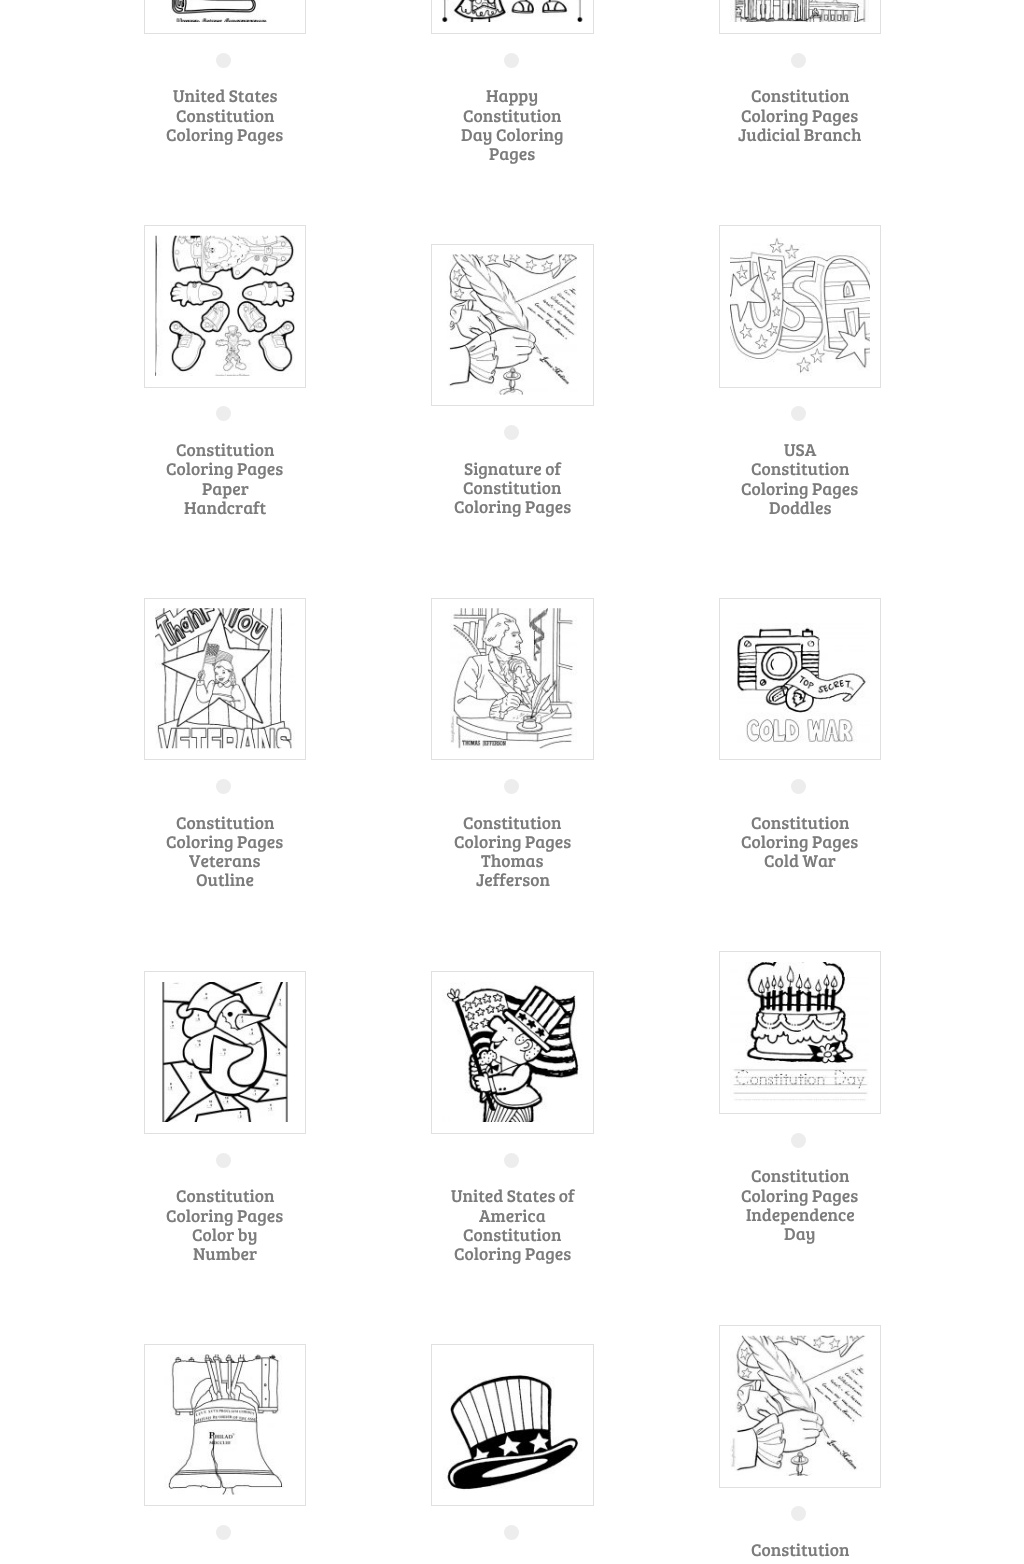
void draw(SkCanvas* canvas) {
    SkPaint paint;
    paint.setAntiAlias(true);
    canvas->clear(0xFFFFFFFF);
    paint.setStyle(SkPaint::kStroke_Style);
    paint.setStrokeWidth(1);
    paint.setColor(0xFFE0E0E0);
    canvas->drawRect(SkRect::MakeXYWH(144.5f, -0.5f, 161, 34), paint);
    canvas->drawImageRect(SkImages::DeferredFromEncodedData(SkData::MakeFromFileName("img1.png")), SkRect::MakeXYWH(170, 0, 97, 22), SkSamplingOptions());
    paint.setStyle(SkPaint::kFill_Style);
    paint.setColor(0xFFEDEDED);
    canvas->drawCircle(223.5f, 60.5f, 7.5f, paint);
    SkFont font1(fontMgr->matchFamilyStyle("Bree Serif", SkFontStyle::Normal()), 17.5f);
    font1.setSubpixel(true);
    paint.setColor(0xFF7C7C7C);
    canvas->drawString("United States", 173, 102, font1, paint);
    canvas->drawString("Constitution", 176, 122, font1, paint);
    canvas->drawString("Coloring Pages", 166, 141, font1, paint);
    paint.setStyle(SkPaint::kStroke_Style);
    paint.setColor(0xFFE0E0E0);
    canvas->drawRect(SkRect::MakeXYWH(431.5f, -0.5f, 162, 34), paint);
    canvas->drawImageRect(SkImages::DeferredFromEncodedData(SkData::MakeFromFileName("img2.png")), SkRect::MakeXYWH(442, 0, 141, 22), SkSamplingOptions());
    paint.setStyle(SkPaint::kFill_Style);
    paint.setColor(0xFFEDEDED);
    canvas->drawCircle(511.5f, 60.5f, 7.5f, paint);
    paint.setColor(0xFF7C7C7C);
    canvas->drawString("Happy", 486, 102, font1, paint);
    canvas->drawString("Constitution", 463, 122, font1, paint);
    canvas->drawString("Day Coloring", 461, 141, font1, paint);
    canvas->drawString("Pages", 489, 160, font1, paint);
    paint.setStyle(SkPaint::kStroke_Style);
    paint.setColor(0xFFE0E0E0);
    canvas->drawRect(SkRect::MakeXYWH(719.5f, -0.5f, 161, 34), paint);
    canvas->drawImageRect(SkImages::DeferredFromEncodedData(SkData::MakeFromFileName("img3.png")), SkRect::MakeXYWH(730, 0, 139, 22), SkSamplingOptions());
    paint.setStyle(SkPaint::kFill_Style);
    paint.setColor(0xFFEDEDED);
    canvas->drawCircle(798.5f, 60.5f, 7.5f, paint);
    paint.setColor(0xFF7C7C7C);
    canvas->drawString("Constitution", 751, 102, font1, paint);
    canvas->drawString("Coloring Pages", 741, 122, font1, paint);
    canvas->drawString("Judicial Branch", 738, 141, font1, paint);
    paint.setStyle(SkPaint::kStroke_Style);
    paint.setColor(0xFFE0E0E0);
    canvas->drawRect(SkRect::MakeXYWH(144.5f, 225.5f, 161, 162), paint);
    canvas->drawImageRect(SkImages::DeferredFromEncodedData(SkData::MakeFromFileName("img4.png")), SkRect::MakeXYWH(155, 235, 140, 141), SkSamplingOptions());
    paint.setStyle(SkPaint::kFill_Style);
    paint.setColor(0xFFEDEDED);
    canvas->drawCircle(223.5f, 413.5f, 7.5f, paint);
    paint.setColor(0xFF7C7C7C);
    canvas->drawString("Constitution", 176, 456, font1, paint);
    canvas->drawString("Coloring Pages", 166, 475, font1, paint);
    canvas->drawString("Paper", 202, 495, font1, paint);
    canvas->drawString("Handcraft", 184, 514, font1, paint);
    paint.setStyle(SkPaint::kStroke_Style);
    paint.setColor(0xFFE0E0E0);
    canvas->drawRect(SkRect::MakeXYWH(431.5f, 244.5f, 162, 161), paint);
    canvas->drawImageRect(SkImages::DeferredFromEncodedData(SkData::MakeFromFileName("img5.png")), SkRect::MakeXYWH(447, 254, 130, 141), SkSamplingOptions());
    paint.setStyle(SkPaint::kFill_Style);
    paint.setColor(0xFFEDEDED);
    canvas->drawCircle(511.5f, 432.5f, 7.5f, paint);
    paint.setColor(0xFF7C7C7C);
    canvas->drawString("Signature of", 464, 475, font1, paint);
    canvas->drawString("Constitution", 463, 494, font1, paint);
    canvas->drawString("Coloring Pages", 454, 513, font1, paint);
    paint.setStyle(SkPaint::kStroke_Style);
    paint.setColor(0xFFE0E0E0);
    canvas->drawRect(SkRect::MakeXYWH(719.5f, 225.5f, 161, 162), paint);
    canvas->drawImageRect(SkImages::DeferredFromEncodedData(SkData::MakeFromFileName("img6.png")), SkRect::MakeXYWH(730, 237, 140, 139), SkSamplingOptions());
    paint.setStyle(SkPaint::kFill_Style);
    paint.setColor(0xFFEDEDED);
    canvas->drawCircle(798.5f, 413.5f, 7.5f, paint);
    paint.setColor(0xFF7C7C7C);
    canvas->drawString("USA", 784, 456, font1, paint);
    canvas->drawString("Constitution", 751, 475, font1, paint);
    canvas->drawString("Coloring Pages", 741, 495, font1, paint);
    canvas->drawString("Doddles", 769, 514, font1, paint);
    paint.setStyle(SkPaint::kStroke_Style);
    paint.setColor(0xFFE0E0E0);
    canvas->drawRect(SkRect::MakeXYWH(144.5f, 598.5f, 161, 161), paint);
    canvas->drawImageRect(SkImages::DeferredFromEncodedData(SkData::MakeFromFileName("img7.png")), SkRect::MakeXYWH(155, 608, 140, 141), SkSamplingOptions());
    paint.setStyle(SkPaint::kFill_Style);
    paint.setColor(0xFFEDEDED);
    canvas->drawCircle(223.5f, 786.5f, 7.5f, paint);
    paint.setColor(0xFF7C7C7C);
    canvas->drawString("Constitution", 176, 829, font1, paint);
    canvas->drawString("Coloring Pages", 166, 848, font1, paint);
    canvas->drawString("Veterans", 189, 867, font1, paint);
    canvas->drawString("Outline", 196, 886, font1, paint);
    paint.setStyle(SkPaint::kStroke_Style);
    paint.setColor(0xFFE0E0E0);
    canvas->drawRect(SkRect::MakeXYWH(431.5f, 598.5f, 162, 161), paint);
    canvas->drawImageRect(SkImages::DeferredFromEncodedData(SkData::MakeFromFileName("img8.png")), SkRect::MakeXYWH(450, 608, 127, 141), SkSamplingOptions());
    paint.setStyle(SkPaint::kFill_Style);
    paint.setColor(0xFFEDEDED);
    canvas->drawCircle(511.5f, 786.5f, 7.5f, paint);
    paint.setColor(0xFF7C7C7C);
    canvas->drawString("Constitution", 463, 829, font1, paint);
    canvas->drawString("Coloring Pages", 454, 848, font1, paint);
    canvas->drawString("Thomas", 481, 867, font1, paint);
    canvas->drawString("Jefferson", 476, 886, font1, paint);
    paint.setStyle(SkPaint::kStroke_Style);
    paint.setColor(0xFFE0E0E0);
    canvas->drawRect(SkRect::MakeXYWH(719.5f, 598.5f, 161, 161), paint);
    canvas->drawImageRect(SkImages::DeferredFromEncodedData(SkData::MakeFromFileName("img9.png")), SkRect::MakeXYWH(737, 623, 133, 120), SkSamplingOptions());
    paint.setStyle(SkPaint::kFill_Style);
    paint.setColor(0xFFEDEDED);
    canvas->drawCircle(798.5f, 786.5f, 7.5f, paint);
    paint.setColor(0xFF7C7C7C);
    canvas->drawString("Constitution", 751, 829, font1, paint);
    canvas->drawString("Coloring Pages", 741, 848, font1, paint);
    canvas->drawString("Cold War", 764, 867, font1, paint);
    paint.setStyle(SkPaint::kStroke_Style);
    paint.setColor(0xFFE0E0E0);
    canvas->drawRect(SkRect::MakeXYWH(144.5f, 971.5f, 161, 162), paint);
    canvas->drawImageRect(SkImages::DeferredFromEncodedData(SkData::MakeFromFileName("img10.png")), SkRect::MakeXYWH(162, 982, 127, 140), SkSamplingOptions());
    paint.setStyle(SkPaint::kFill_Style);
    paint.setColor(0xFFEDEDED);
    canvas->drawCircle(223.5f, 1160.5f, 7.5f, paint);
    paint.setColor(0xFF7C7C7C);
    canvas->drawString("Constitution", 176, 1202, font1, paint);
    canvas->drawString("Coloring Pages", 166, 1222, font1, paint);
    canvas->drawString("Color by", 192, 1241, font1, paint);
    canvas->drawString("Number", 193, 1260, font1, paint);
    paint.setStyle(SkPaint::kStroke_Style);
    paint.setColor(0xFFE0E0E0);
    canvas->drawRect(SkRect::MakeXYWH(431.5f, 971.5f, 162, 162), paint);
    canvas->drawImageRect(SkImages::DeferredFromEncodedData(SkData::MakeFromFileName("img11.png")), SkRect::MakeXYWH(442, 982, 140, 140), SkSamplingOptions());
    paint.setStyle(SkPaint::kFill_Style);
    paint.setColor(0xFFEDEDED);
    canvas->drawCircle(511.5f, 1160.5f, 7.5f, paint);
    paint.setColor(0xFF7C7C7C);
    canvas->drawString("United States of", 451, 1202, font1, paint);
    canvas->drawString("America", 479, 1222, font1, paint);
    canvas->drawString("Constitution", 463, 1241, font1, paint);
    canvas->drawString("Coloring Pages", 454, 1260, font1, paint);
    paint.setStyle(SkPaint::kStroke_Style);
    paint.setColor(0xFFE0E0E0);
    canvas->drawRect(SkRect::MakeXYWH(719.5f, 951.5f, 161, 162), paint);
    canvas->drawImageRect(SkImages::DeferredFromEncodedData(SkData::MakeFromFileName("img12.png")), SkRect::MakeXYWH(730, 962, 139, 140), SkSamplingOptions());
    paint.setStyle(SkPaint::kFill_Style);
    paint.setColor(0xFFEDEDED);
    canvas->drawCircle(798.5f, 1140.5f, 7.5f, paint);
    paint.setColor(0xFF7C7C7C);
    canvas->drawString("Constitution", 751, 1182, font1, paint);
    canvas->drawString("Coloring Pages", 741, 1202, font1, paint);
    canvas->drawString("Independence", 746, 1221, font1, paint);
    canvas->drawString("Day", 784, 1240, font1, paint);
    paint.setStyle(SkPaint::kStroke_Style);
    paint.setColor(0xFFE0E0E0);
    canvas->drawRect(SkRect::MakeXYWH(144.5f, 1344.5f, 161, 161), paint);
    canvas->drawImageRect(SkImages::DeferredFromEncodedData(SkData::MakeFromFileName("img13.png")), SkRect::MakeXYWH(164, 1354, 120, 141), SkSamplingOptions());
    paint.setStyle(SkPaint::kFill_Style);
    paint.setColor(0xFFEDEDED);
    canvas->drawCircle(223.5f, 1532.5f, 7.5f, paint);
    paint.setStyle(SkPaint::kStroke_Style);
    paint.setColor(0xFFE0E0E0);
    canvas->drawRect(SkRect::MakeXYWH(431.5f, 1344.5f, 162, 161), paint);
    canvas->drawImageRect(SkImages::DeferredFromEncodedData(SkData::MakeFromFileName("img14.png")), SkRect::MakeXYWH(442, 1373, 140, 118), SkSamplingOptions());
    paint.setStyle(SkPaint::kFill_Style);
    paint.setColor(0xFFEDEDED);
    canvas->drawCircle(511.5f, 1532.5f, 7.5f, paint);
    paint.setStyle(SkPaint::kStroke_Style);
    paint.setColor(0xFFE0E0E0);
    canvas->drawRect(SkRect::MakeXYWH(719.5f, 1325.5f, 161, 162), paint);
    canvas->drawImageRect(SkImages::DeferredFromEncodedData(SkData::MakeFromFileName("img15.png")), SkRect::MakeXYWH(730, 1335, 136, 141), SkSamplingOptions());
    paint.setStyle(SkPaint::kFill_Style);
    paint.setColor(0xFFEDEDED);
    canvas->drawCircle(798.5f, 1513.5f, 7.5f, paint);
    paint.setColor(0xFF7C7C7C);
    canvas->drawString("Constitution", 751, 1556, font1, paint);
}
